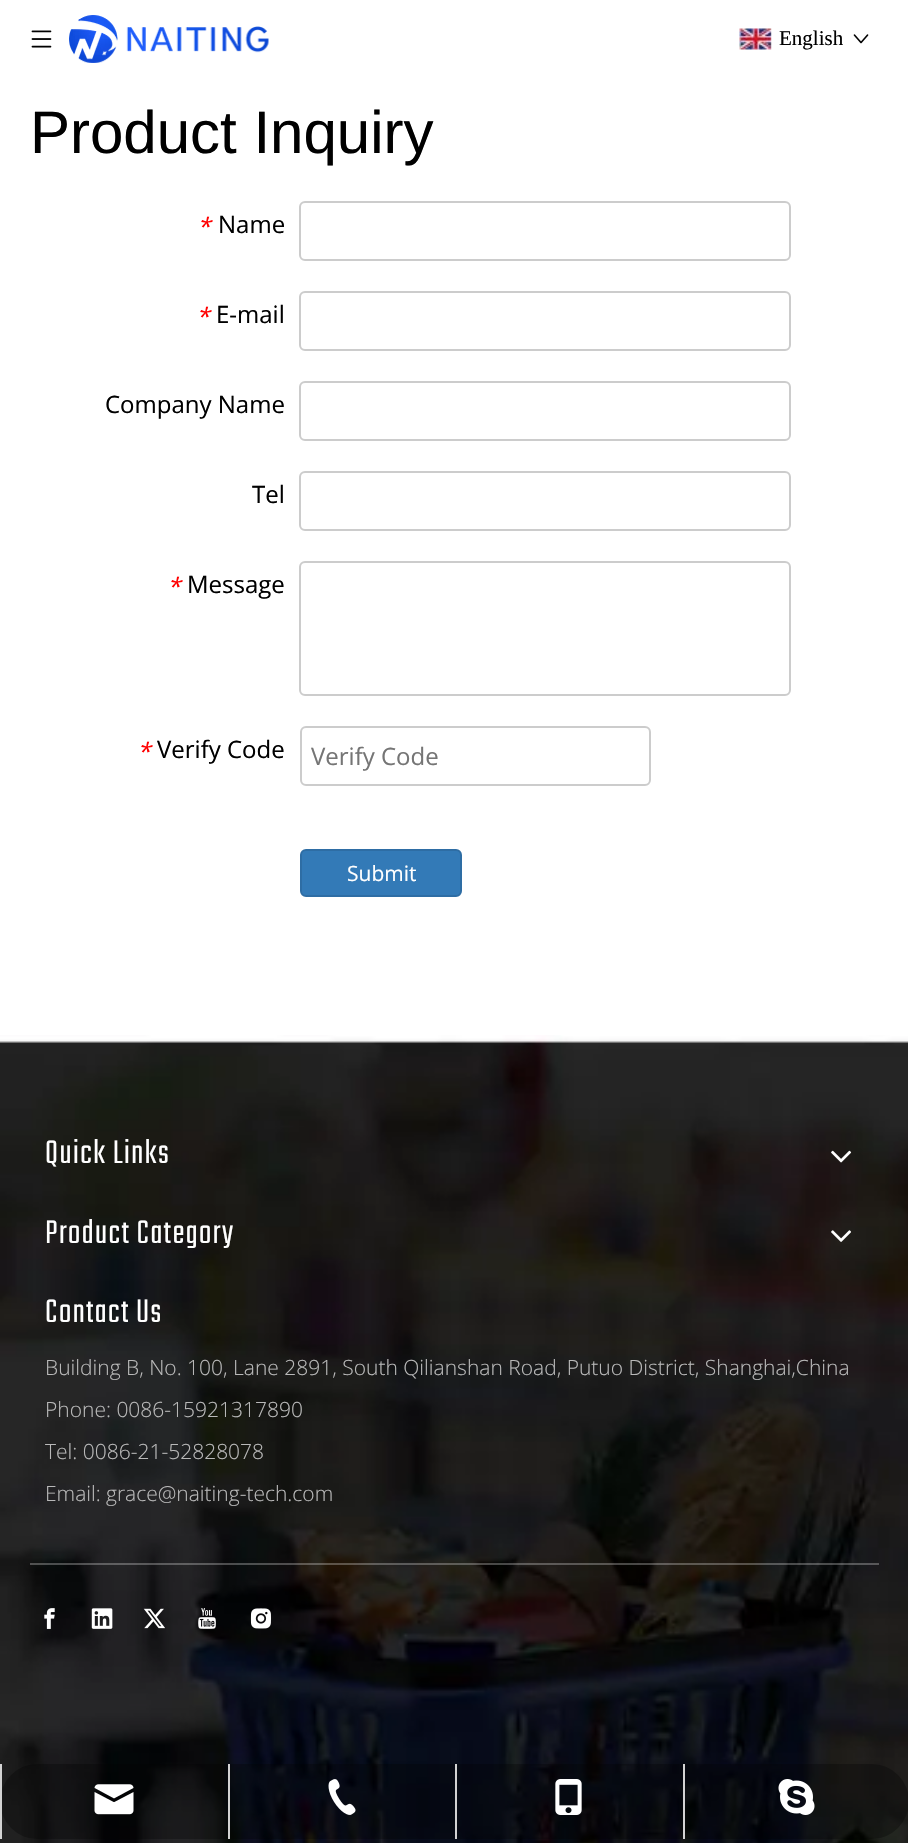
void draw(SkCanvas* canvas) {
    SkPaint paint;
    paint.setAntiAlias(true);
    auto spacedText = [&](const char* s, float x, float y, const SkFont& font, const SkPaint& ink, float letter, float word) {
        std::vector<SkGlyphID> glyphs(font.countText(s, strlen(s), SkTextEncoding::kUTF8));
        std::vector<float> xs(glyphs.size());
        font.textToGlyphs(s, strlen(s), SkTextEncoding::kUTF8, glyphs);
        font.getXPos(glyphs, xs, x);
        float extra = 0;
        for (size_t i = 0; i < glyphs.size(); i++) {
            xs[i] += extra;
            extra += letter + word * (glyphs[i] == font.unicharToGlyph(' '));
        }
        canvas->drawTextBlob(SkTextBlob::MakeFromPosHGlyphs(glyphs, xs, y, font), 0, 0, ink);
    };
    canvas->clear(0xFFFFFFFF);
    canvas->drawImageRect(SkImages::DeferredFromEncodedData(SkData::MakeFromFileName("img1.png")), SkRect::MakeXYWH(31, 30, 21, 18), SkSamplingOptions());
    canvas->drawImageRect(SkImages::DeferredFromEncodedData(SkData::MakeFromFileName("img2.png")), SkRect::MakeXYWH(69, 15, 200, 48), SkSamplingOptions());
    canvas->drawImageRect(SkImages::DeferredFromEncodedData(SkData::MakeFromFileName("img3.png")), SkRect::MakeXYWH(739, 28, 33, 22), SkSamplingOptions());
    SkFont font1(fontMgr->matchFamilyStyle("Liberation Serif", SkFontStyle::Normal()), 21);
    font1.setSubpixel(true);
    paint.setColor(0xFF000000);
    canvas->drawString("English", 779, 45, font1, paint);
    canvas->drawImageRect(SkImages::DeferredFromEncodedData(SkData::MakeFromFileName("img4.png")), SkRect::MakeXYWH(853, 34, 16, 10), SkSamplingOptions());
    SkFont font2(fontMgr->matchFamilyStyle("Liberation Sans", SkFontStyle::Normal()), 60);
    font2.setSubpixel(true);
    canvas->drawString("Product Inquiry", 30, 153, font2, paint);
    SkFont font3(fontMgr->matchFamilyStyle("Open Sans", SkFontStyle::Italic()), 24);
    font3.setSubpixel(true);
    paint.setColor(0xFFFF0000);
    canvas->drawString("*", 197, 235, font3, paint);
    SkFont font4(fontMgr->matchFamilyStyle("Open Sans", SkFontStyle::Normal()), 24);
    font4.setSubpixel(true);
    paint.setColor(0xFF000000);
    canvas->drawString("Name", 218, 233, font4, paint);
    paint.setStyle(SkPaint::kStroke_Style);
    paint.setStrokeWidth(2);
    paint.setColor(0xFFCCCCCC);
    canvas->drawRoundRect(SkRect::MakeXYWH(300, 202, 490, 58), 5, 5, paint);
    paint.setStyle(SkPaint::kFill_Style);
    paint.setColor(0xFFFF0000);
    canvas->drawString("*", 196, 325, font3, paint);
    paint.setColor(0xFF000000);
    canvas->drawString("E-mail", 216, 323, font4, paint);
    paint.setStyle(SkPaint::kStroke_Style);
    paint.setColor(0xFFCCCCCC);
    canvas->drawRoundRect(SkRect::MakeXYWH(300, 292, 490, 58), 5, 5, paint);
    paint.setStyle(SkPaint::kFill_Style);
    paint.setColor(0xFF000000);
    canvas->drawString("Company Name", 105, 413, font4, paint);
    paint.setStyle(SkPaint::kStroke_Style);
    paint.setColor(0xFFCCCCCC);
    canvas->drawRoundRect(SkRect::MakeXYWH(300, 382, 490, 58), 5, 5, paint);
    paint.setStyle(SkPaint::kFill_Style);
    paint.setColor(0xFF000000);
    canvas->drawString("Tel", 252, 503, font4, paint);
    paint.setStyle(SkPaint::kStroke_Style);
    paint.setColor(0xFFCCCCCC);
    canvas->drawRoundRect(SkRect::MakeXYWH(300, 472, 490, 58), 5, 5, paint);
    paint.setStyle(SkPaint::kFill_Style);
    paint.setColor(0xFFFF0000);
    canvas->drawString("*", 167, 595, font3, paint);
    paint.setColor(0xFF000000);
    canvas->drawString("Message", 187, 593, font4, paint);
    paint.setStyle(SkPaint::kStroke_Style);
    paint.setColor(0xFFCCCCCC);
    canvas->drawRoundRect(SkRect::MakeXYWH(300, 562, 490, 133), 5, 5, paint);
    paint.setStyle(SkPaint::kFill_Style);
    paint.setColor(0xFFFF0000);
    canvas->drawString("*", 137, 760, font3, paint);
    paint.setColor(0xFF000000);
    canvas->drawString("Verify Code", 157, 758, font4, paint);
    paint.setStyle(SkPaint::kStroke_Style);
    paint.setColor(0xFFCCCCCC);
    canvas->drawRoundRect(SkRect::MakeXYWH(301, 727, 349, 58), 5, 5, paint);
    paint.setStyle(SkPaint::kFill_Style);
    paint.setColor(0xFF757575);
    canvas->drawString("Verify Code", 311, 765, font4, paint);
    paint.setColor(0xFF337AB7);
    canvas->drawRoundRect(SkRect::MakeXYWH(301, 850, 160, 46), 5, 5, paint);
    paint.setStyle(SkPaint::kStroke_Style);
    paint.setColor(0xFF2E6DA4);
    canvas->drawRoundRect(SkRect::MakeXYWH(301, 850, 160, 46), 5, 5, paint);
    SkFont font5(fontMgr->matchFamilyStyle("Open Sans", SkFontStyle::Normal()), 21);
    font5.setSubpixel(true);
    paint.setStyle(SkPaint::kFill_Style);
    paint.setColor(0xFFFFFFFF);
    canvas->drawString("Submit", 347, 881, font5, paint);
    canvas->drawImageRect(SkImages::DeferredFromEncodedData(SkData::MakeFromFileName("img5.png")), SkRect::MakeXYWH(0, 1035, 908, 808), SkSamplingOptions());
    SkFont font6(fontMgr->matchFamilyStyle("Teko", SkFontStyle(300, SkFontStyle::kNormal_Width, SkFontStyle::kUpright_Slant)), 36);
    font6.setSubpixel(true);
    spacedText("Quick Links", 45, 1163, font6, paint, 1.5f, 0);
    canvas->drawImageRect(SkImages::DeferredFromEncodedData(SkData::MakeFromFileName("img6.png")), SkRect::MakeXYWH(831, 1150, 21, 13), SkSamplingOptions());
    spacedText("Product Category", 45, 1243, font6, paint, 1.5f, 0);
    canvas->drawImageRect(SkImages::DeferredFromEncodedData(SkData::MakeFromFileName("img7.png")), SkRect::MakeXYWH(831, 1230, 20, 12), SkSamplingOptions());
    spacedText("Contact Us", 45, 1322, font6, paint, 1.5f, 0);
    SkFont font7(fontMgr->matchFamilyStyle("Open Sans", SkFontStyle(300, SkFontStyle::kNormal_Width, SkFontStyle::kUpright_Slant)), 21);
    font7.setSubpixel(true);
    paint.setColor(0xFFB9B9B9);
    canvas->drawString("Building B, No. 100, Lane 2891, South Qilianshan Road, Putuo District, Shanghai,China", 45, 1375, font7, paint);
    canvas->drawString("Phone: 0086-15921317890", 45, 1417, font7, paint);
    canvas->drawString("Tel: 0086-21-52828078", 45, 1459, font7, paint);
    canvas->drawString("Email:", 45, 1501, font7, paint);
    canvas->drawString("grace@naiting-tech.com", 106, 1501, font7, paint);
    paint.setColor(0x45FFFFFF);
    canvas->drawRect(SkRect::MakeXYWH(30, 1563, 849, 2), paint);
    canvas->drawImageRect(SkImages::DeferredFromEncodedData(SkData::MakeFromFileName("img8.png")), SkRect::MakeXYWH(44, 1608, 11, 21), SkSamplingOptions());
    canvas->drawImageRect(SkImages::DeferredFromEncodedData(SkData::MakeFromFileName("img9.png")), SkRect::MakeXYWH(91, 1608, 22, 21), SkSamplingOptions());
    canvas->drawImageRect(SkImages::DeferredFromEncodedData(SkData::MakeFromFileName("img10.png")), SkRect::MakeXYWH(143, 1608, 22, 21), SkSamplingOptions());
    canvas->drawImageRect(SkImages::DeferredFromEncodedData(SkData::MakeFromFileName("img11.png")), SkRect::MakeXYWH(198, 1608, 18, 21), SkSamplingOptions());
    canvas->drawImageRect(SkImages::DeferredFromEncodedData(SkData::MakeFromFileName("img12.png")), SkRect::MakeXYWH(250, 1608, 21, 21), SkSamplingOptions());
    paint.setColor(0x4D000000);
    canvas->drawRoundRect(SkRect::MakeXYWH(0, 1764, 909, 75), 37.5f, 37.5f, paint);
    paint.setColor(0xFFD3D3D3);
    canvas->drawRect(SkRect::MakeXYWH(0, 1764, 2, 75), paint);
    canvas->drawImageRect(SkImages::DeferredFromEncodedData(SkData::MakeFromFileName("img13.png")), SkRect::MakeXYWH(94, 1784, 40, 31), SkSamplingOptions());
    canvas->drawRect(SkRect::MakeXYWH(228, 1764, 2, 75), paint);
    canvas->drawImageRect(SkImages::DeferredFromEncodedData(SkData::MakeFromFileName("img14.png")), SkRect::MakeXYWH(328, 1779, 28, 36), SkSamplingOptions());
    canvas->drawRect(SkRect::MakeXYWH(455, 1764, 2, 75), paint);
    canvas->drawImageRect(SkImages::DeferredFromEncodedData(SkData::MakeFromFileName("img15.png")), SkRect::MakeXYWH(555, 1779, 27, 36), SkSamplingOptions());
    canvas->drawRect(SkRect::MakeXYWH(683, 1764, 2, 75), paint);
    canvas->drawImageRect(SkImages::DeferredFromEncodedData(SkData::MakeFromFileName("img16.png")), SkRect::MakeXYWH(778, 1779, 37, 36), SkSamplingOptions());
}
